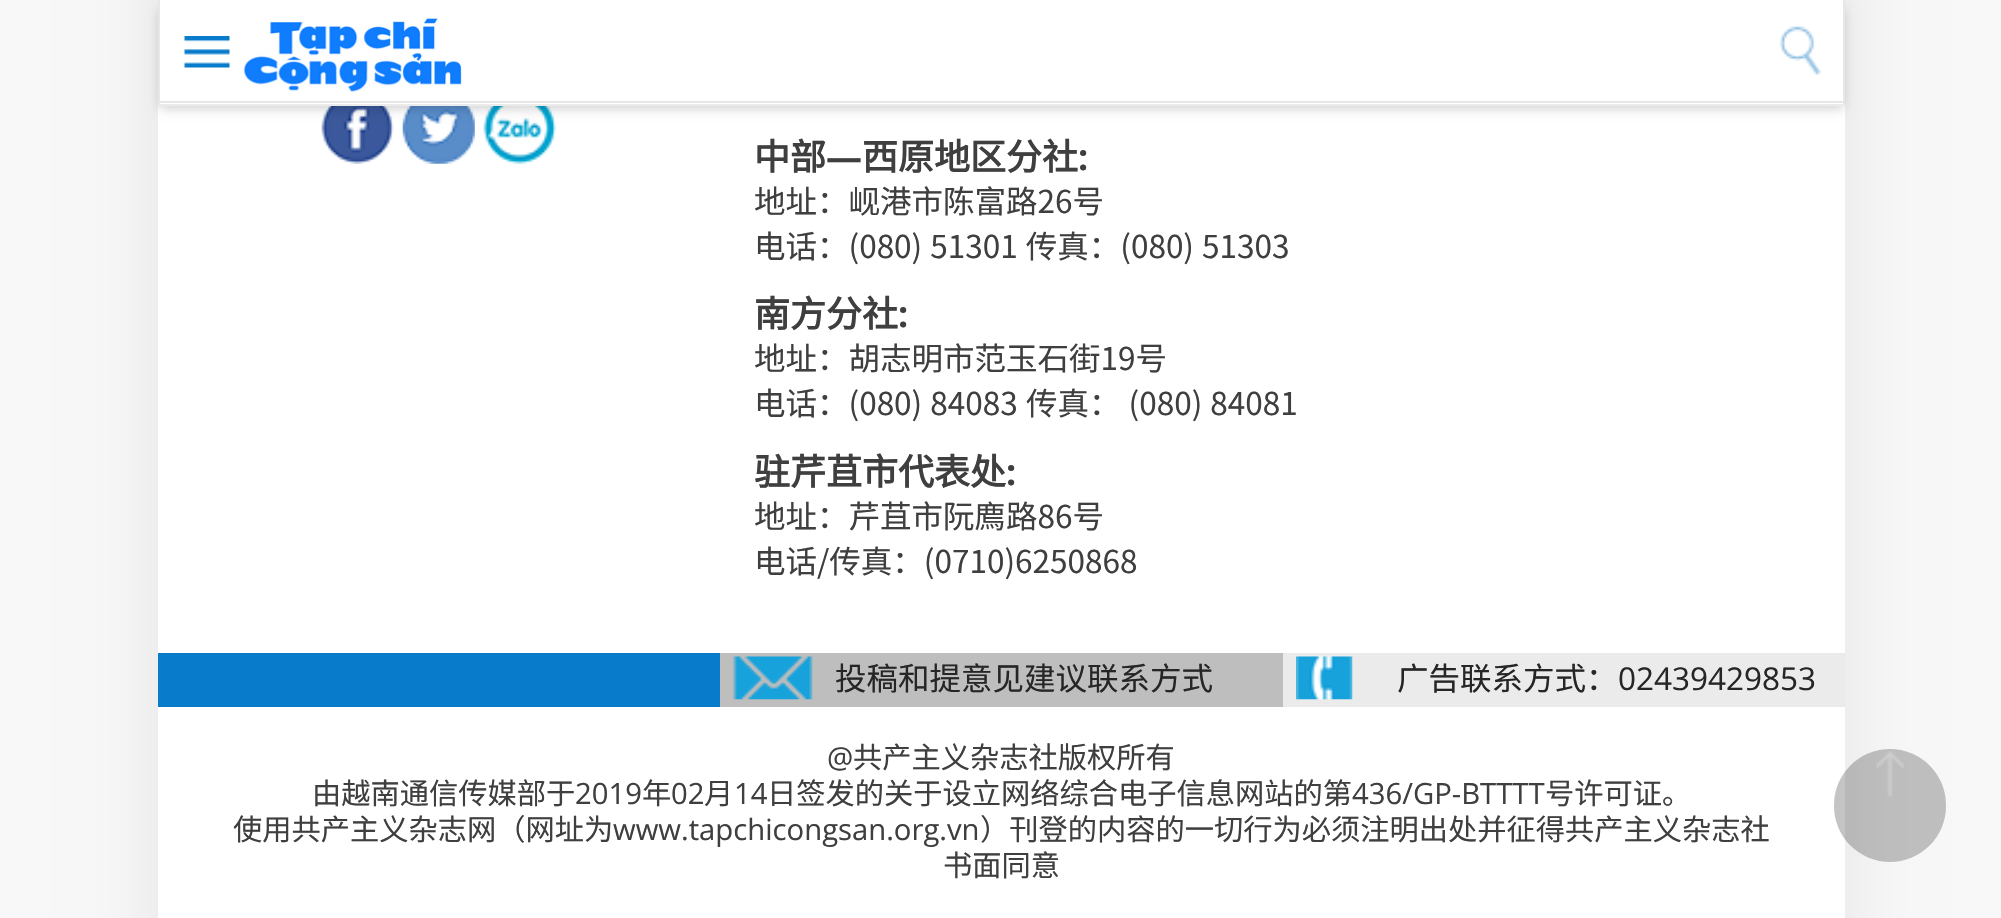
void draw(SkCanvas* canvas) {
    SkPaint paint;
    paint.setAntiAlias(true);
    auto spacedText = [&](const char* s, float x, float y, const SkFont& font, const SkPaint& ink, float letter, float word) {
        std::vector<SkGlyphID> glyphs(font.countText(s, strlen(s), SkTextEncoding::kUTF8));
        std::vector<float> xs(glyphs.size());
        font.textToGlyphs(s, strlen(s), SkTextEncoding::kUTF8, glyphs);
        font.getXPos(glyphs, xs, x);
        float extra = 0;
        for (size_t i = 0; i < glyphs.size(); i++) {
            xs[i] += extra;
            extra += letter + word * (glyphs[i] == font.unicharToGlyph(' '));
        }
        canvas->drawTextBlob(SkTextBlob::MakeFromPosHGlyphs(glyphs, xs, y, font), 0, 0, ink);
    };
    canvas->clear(0xFFF8F8F8);
    paint.setColor(0x14000000);
    paint.setMaskFilter(SkMaskFilter::MakeBlur(kNormal_SkBlurStyle, 36));
    canvas->drawRect(SkRect::MakeXYWH(158, -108, 1687, 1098), paint);
    paint.setMaskFilter(nullptr);
    paint.setColor(0xFFFFFFFF);
    canvas->drawRect(SkRect::MakeXYWH(158, 106, 1687, 812), paint);
    canvas->drawImageRect(SkImages::DeferredFromEncodedData(SkData::MakeFromFileName("img4.png")), SkRect::MakeXYWH(321, 106, 73, 58), SkSamplingOptions());
    canvas->drawImageRect(SkImages::DeferredFromEncodedData(SkData::MakeFromFileName("img5.png")), SkRect::MakeXYWH(402, 106, 73, 58), SkSamplingOptions());
    canvas->drawImageRect(SkImages::DeferredFromEncodedData(SkData::MakeFromFileName("img6.png")), SkRect::MakeXYWH(483, 106, 73, 58), SkSamplingOptions());
    paint.setColor(0x33000000);
    paint.setMaskFilter(SkMaskFilter::MakeBlur(kNormal_SkBlurStyle, 5.5f));
    canvas->drawRect(SkRect::MakeXYWH(160, 9, 1683, 99), paint);
    paint.setMaskFilter(nullptr);
    paint.setColor(0xFFFFFFFF);
    canvas->drawRect(SkRect::MakeXYWH(160, 0, 1683, 104), paint);
    paint.setColor(0xFFE7E7E7);
    canvas->drawRect(SkRect::MakeXYWH(1843, 0, 2, 104), paint);
    canvas->drawRect(SkRect::MakeXYWH(158, 101, 1687, 2), paint);
    canvas->drawRect(SkRect::MakeXYWH(158, 0, 2, 104), paint);
    canvas->drawImageRect(SkImages::DeferredFromEncodedData(SkData::MakeFromFileName("img1.png")), SkRect::MakeXYWH(184, 36, 46, 32), SkSamplingOptions());
    canvas->drawImageRect(SkImages::DeferredFromEncodedData(SkData::MakeFromFileName("img2.png")), SkRect::MakeXYWH(243, 18, 219, 74), SkSamplingOptions());
    canvas->drawImageRect(SkImages::DeferredFromEncodedData(SkData::MakeFromFileName("img3.png")), SkRect::MakeXYWH(1779, 26, 42, 49), SkSamplingOptions());
    paint.setColor(0xFFEBEBEB);
    canvas->drawRect(SkRect::MakeXYWH(158, 104, 1687, 2), paint);
    SkFont font1(fontMgr->matchFamilyStyle("Noto Sans CJK SC", SkFontStyle::Bold()), 36);
    font1.setSubpixel(true);
    paint.setColor(0xFF3F3F3F);
    canvas->drawString("中部", 754, 170, font1, paint);
    SkFont font2(fontMgr->matchFamilyStyle("Open Sans", SkFontStyle::Bold()), 36);
    font2.setSubpixel(true);
    canvas->drawString("—", 826, 170, font2, paint);
    canvas->drawString("西原地区分社", 862, 170, font1, paint);
    canvas->drawString(":", 1078, 170, font2, paint);
    SkFont font3(fontMgr->matchFamilyStyle("Noto Sans CJK SC", SkFontStyle::Normal()), 31.5f);
    font3.setSubpixel(true);
    canvas->drawString("地址：岘港市陈富路26号", 754, 213, font3, paint);
    spacedText("电话：(080) 51301 传真：(080) 51303", 754, 258, font3, paint, 0, 1);
    canvas->drawString("南方分社", 754, 327, font1, paint);
    canvas->drawString(":", 898, 327, font2, paint);
    canvas->drawString("地址：胡志明市范玉石街19号", 754, 370, font3, paint);
    spacedText("电话：(080) 84083", 754, 415, font3, paint, 0, 1);
    spacedText("传真： (080) 84081", 1026, 415, font3, paint, 0, 1);
    canvas->drawString("驻芹苴市代表处", 754, 485, font1, paint);
    canvas->drawString(":", 1006, 485, font2, paint);
    canvas->drawString("地址：芹苴市阮廌路86号", 754, 528, font3, paint);
    canvas->drawString("电话/传真：(0710)6250868", 754, 573, font3, paint);
    paint.setColor(0xFF087CCA);
    canvas->drawRect(SkRect::MakeXYWH(158, 653, 562, 54), paint);
    paint.setColor(0xFFBEBEBE);
    canvas->drawRect(SkRect::MakeXYWH(720, 653, 563, 54), paint);
    canvas->drawImageRect(SkImages::DeferredFromEncodedData(SkData::MakeFromFileName("img7.png")), SkRect::MakeXYWH(733, 656, 80, 44), SkSamplingOptions());
    paint.setColor(0xFF262626);
    canvas->drawString("投稿和提意见建议联系方式", 835, 690, font3, paint);
    paint.setColor(0xFFEBEBEB);
    canvas->drawRect(SkRect::MakeXYWH(1283, 653, 562, 54), paint);
    canvas->drawImageRect(SkImages::DeferredFromEncodedData(SkData::MakeFromFileName("img8.png")), SkRect::MakeXYWH(1296, 656, 57, 44), SkSamplingOptions());
    paint.setColor(0xFF262626);
    canvas->drawString("广告联系方式：", 1397, 690, font3, paint);
    SkFont font4(fontMgr->matchFamilyStyle("Open Sans", SkFontStyle::Normal()), 31.5f);
    font4.setSubpixel(true);
    canvas->drawString("02439429853", 1618, 690, font4, paint);
    SkFont font5(fontMgr->matchFamilyStyle("Open Sans", SkFontStyle::Normal()), 29.25f);
    font5.setSubpixel(true);
    paint.setColor(0xFF3F3F3F);
    canvas->drawString("@", 827, 768, font5, paint);
    SkFont font6(fontMgr->matchFamilyStyle("Noto Sans CJK SC", SkFontStyle::Normal()), 29.25f);
    font6.setSubpixel(true);
    canvas->drawString("共产主义杂志社版权所有", 853, 768, font6, paint);
    canvas->drawString("由越南通信传媒部于", 312, 804, font6, paint);
    canvas->drawString("2019", 575, 804, font5, paint);
    canvas->drawString("年", 642, 804, font6, paint);
    canvas->drawString("02", 671, 804, font5, paint);
    canvas->drawString("月", 704, 804, font6, paint);
    canvas->drawString("14", 734, 804, font5, paint);
    canvas->drawString("日签发的关于设立网络综合电子信息网站的第", 767, 804, font6, paint);
    canvas->drawString("436/GP-BTTTT", 1352, 804, font5, paint);
    canvas->drawString("号许可证。", 1545, 804, font6, paint);
    canvas->drawString("使用共产主义杂志网（网址为", 233, 840, font6, paint);
    canvas->drawString("www.tapchicongsan.org.vn", 613, 840, font5, paint);
    canvas->drawString("）刊登的内容的一切行为必须注明出处并征得共产主义杂志社", 980, 840, font6, paint);
    canvas->drawString("书面同意", 943, 876, font6, paint);
    paint.setColor(0x4A333333);
    canvas->drawRoundRect(SkRect::MakeXYWH(1834, 749, 112, 113), 56, 56, paint);
    canvas->drawImageRect(SkImages::DeferredFromEncodedData(SkData::MakeFromFileName("img9.png")), SkRect::MakeXYWH(1876, 751, 28, 46), SkSamplingOptions());
}
